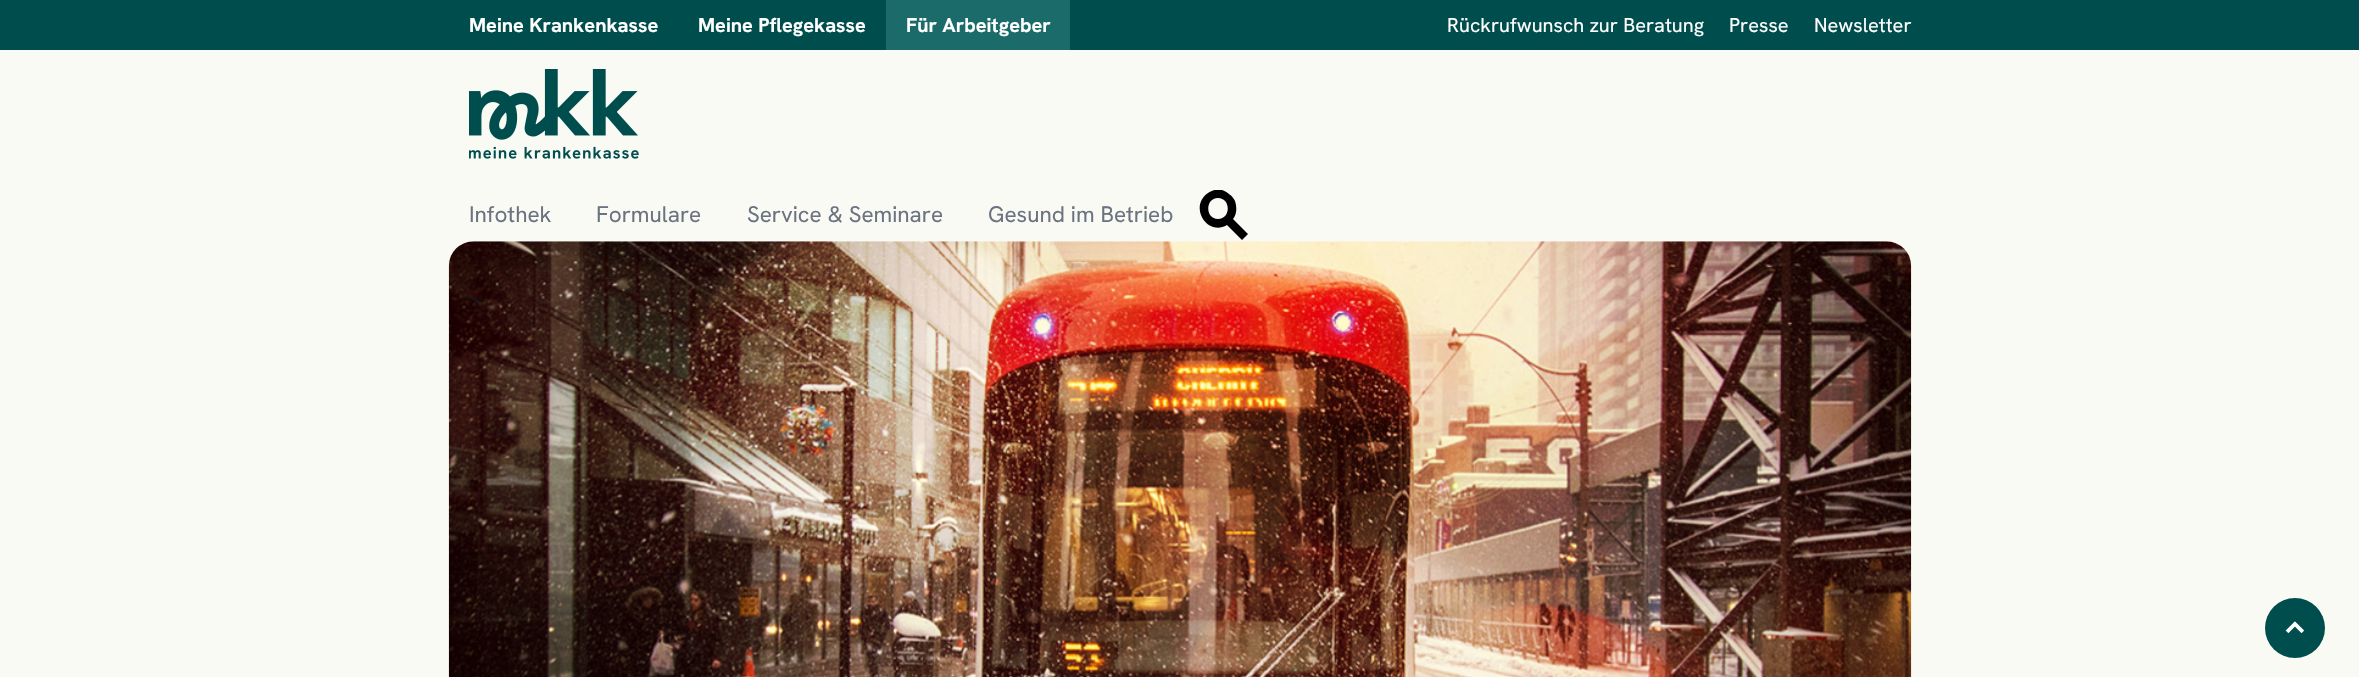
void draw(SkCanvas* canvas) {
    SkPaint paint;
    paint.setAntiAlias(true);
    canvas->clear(0xFFFAFAF5);
    paint.setColor(0xFF004D4D);
    canvas->drawRect(SkRect::MakeXYWH(0, 0, 2359, 50), paint);
    SkFont font1(fontMgr->matchFamilyStyle("Hanken Grotesk", SkFontStyle::Bold()), 20);
    font1.setSubpixel(true);
    paint.setColor(0xFFFFFFFF);
    canvas->drawString("Meine Krankenkasse", 469, 32, font1, paint);
    canvas->drawString("Meine Pflegekasse", 698, 32, font1, paint);
    paint.setColor(0xFF1B6B6B);
    canvas->drawRect(SkRect::MakeXYWH(886, 0, 184, 50), paint);
    paint.setColor(0xFFFFFFFF);
    canvas->drawString("Für Arbeitgeber", 906, 32, font1, paint);
    SkFont font2(fontMgr->matchFamilyStyle("Hanken Grotesk", SkFontStyle::Normal()), 20);
    font2.setSubpixel(true);
    canvas->drawString("Rückrufwunsch zur Beratung", 1447, 32, font2, paint);
    canvas->drawString("Presse", 1729, 32, font2, paint);
    canvas->drawString("Newsletter", 1814, 32, font2, paint);
    canvas->drawImageRect(SkImages::DeferredFromEncodedData(SkData::MakeFromFileName("img1.png")), SkRect::MakeXYWH(469, 69, 170, 90), SkSamplingOptions());
    SkFont font3(fontMgr->matchFamilyStyle("Hanken Grotesk", SkFontStyle::Normal()), 22.5f);
    font3.setSubpixel(true);
    paint.setColor(0xFF6B7280);
    canvas->drawString("Infothek", 469, 222, font3, paint);
    canvas->drawString("Formulare", 596, 222, font3, paint);
    canvas->drawString("Service & Seminare", 747, 222, font3, paint);
    canvas->drawString("Gesund im Betrieb", 988, 222, font3, paint);
    canvas->save();
    canvas->clipRect(SkRect::MakeXYWH(1199, 190, 50, 50));
    paint.setColor(0xFF000000);
    canvas->drawPath(SkPathBuilder().moveTo(1233, 219).cubicTo(1237, 214, 1237, 207, 1235, 201).cubicTo(1233, 196, 1227, 192, 1222, 190).cubicTo(1217, 189, 1212, 190, 1208, 193).cubicTo(1188, 207, 1208, 237, 1227, 225).lineTo(1242, 240).lineTo(1248, 234).close().moveTo(1218, 219).cubicTo(1205, 219, 1205, 198, 1218, 198).cubicTo(1231, 198, 1231, 219, 1218, 219).close().detach(), paint);
    canvas->restore();
    canvas->drawImageRect(SkImages::DeferredFromEncodedData(SkData::MakeFromFileName("img2.png")), SkRect::MakeXYWH(448, 241, 1464, 436), SkSamplingOptions());
    paint.setColor(0xFF004D4D);
    canvas->drawCircle(2295, 628, 30, paint);
    canvas->drawImageRect(SkImages::DeferredFromEncodedData(SkData::MakeFromFileName("img3.png")), SkRect::MakeXYWH(2285, 621, 19, 13), SkSamplingOptions());
}
